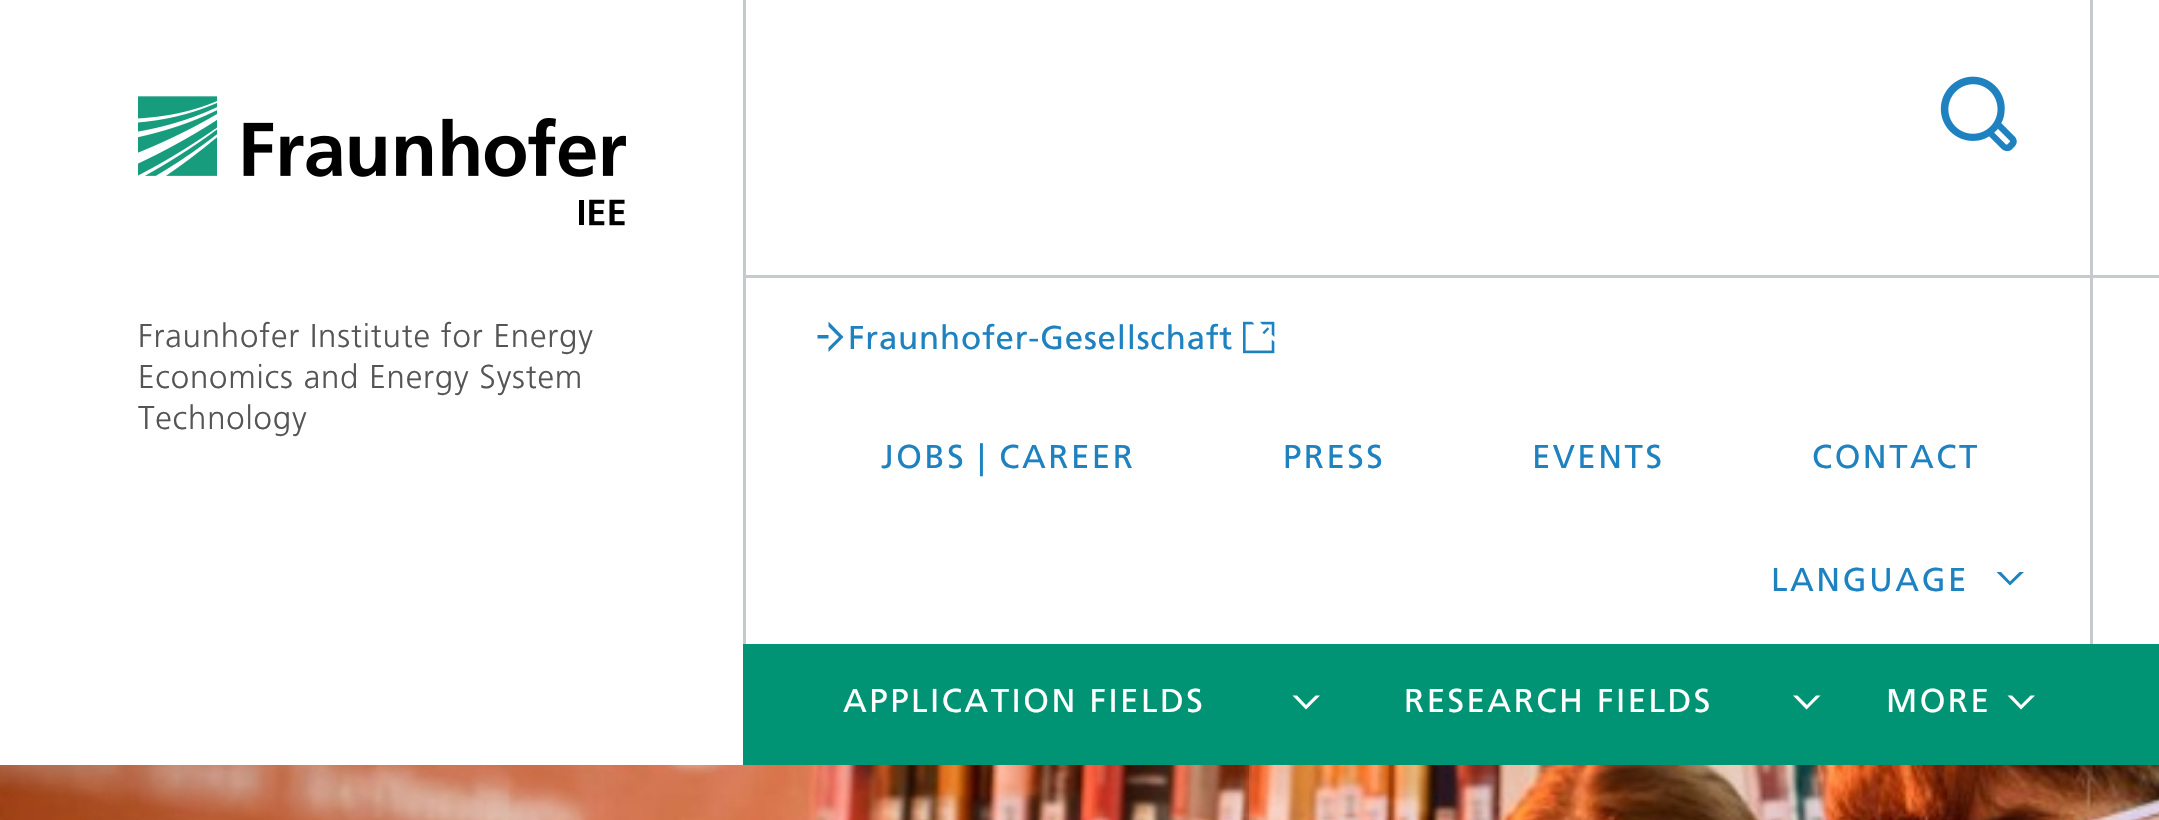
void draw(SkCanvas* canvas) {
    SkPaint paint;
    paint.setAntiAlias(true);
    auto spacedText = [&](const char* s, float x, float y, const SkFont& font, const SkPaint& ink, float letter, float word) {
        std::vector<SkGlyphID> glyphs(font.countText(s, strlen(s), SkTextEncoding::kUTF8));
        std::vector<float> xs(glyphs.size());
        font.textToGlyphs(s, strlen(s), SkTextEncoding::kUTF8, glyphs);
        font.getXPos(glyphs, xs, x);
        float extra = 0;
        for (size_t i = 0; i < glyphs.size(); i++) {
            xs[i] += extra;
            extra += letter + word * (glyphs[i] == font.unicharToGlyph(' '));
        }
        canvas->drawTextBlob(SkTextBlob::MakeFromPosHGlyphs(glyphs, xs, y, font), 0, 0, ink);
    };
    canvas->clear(0xFFFFFFFF);
    canvas->drawImageRect(SkImages::DeferredFromEncodedData(SkData::MakeFromFileName("img1.png")), SkRect::MakeXYWH(138, 96, 488, 130), SkSamplingOptions());
    canvas->drawImageRect(SkImages::DeferredFromEncodedData(SkData::MakeFromFileName("img2.png")), SkRect::MakeXYWH(1940, 76, 77, 76), SkSamplingOptions());
    paint.setColor(0xFFC7CACC);
    canvas->drawRect(SkRect::MakeXYWH(743, 275, 1416, 3), paint);
    SkFont font1(fontMgr->matchFamilyStyle("Frutiger", SkFontStyle(300, SkFontStyle::kNormal_Width, SkFontStyle::kUpright_Slant)), 33);
    font1.setSubpixel(true);
    paint.setColor(0xFF555555);
    spacedText("Fraunhofer Institute for Energy", 138, 347, font1, paint, 0.8f, 0);
    spacedText("Economics and Energy System", 138, 388, font1, paint, 0.8f, 0);
    spacedText("Technology", 138, 429, font1, paint, 0.8f, 0);
    paint.setColor(0xFFC7CACC);
    canvas->drawRect(SkRect::MakeXYWH(2090, 0, 3, 644), paint);
    canvas->drawRect(SkRect::MakeXYWH(743, 0, 3, 644), paint);
    paint.setColor(0xFF1F82C0);
    canvas->drawPath(SkPathBuilder().moveTo(828.5f, 326.5f).lineTo(839, 337).lineTo(828.5f, 347.5f).lineTo(828.5f, 352).lineTo(843.5f, 337).lineTo(828.5f, 321.5f).close().moveTo(817.5f, 335).lineTo(817.5f, 338.5f).lineTo(828.5f, 338.5f).lineTo(828.5f, 335).close().detach(), paint);
    SkFont font2(fontMgr->matchFamilyStyle("Frutiger", SkFontStyle::Normal()), 33);
    font2.setSubpixel(true);
    spacedText("Fraunhofer-Gesellschaft", 848, 349, font2, paint, 0.8f, 0);
    canvas->drawImageRect(SkImages::DeferredFromEncodedData(SkData::MakeFromFileName("img3.png")), SkRect::MakeXYWH(1243, 321, 32, 33), SkSamplingOptions());
    spacedText("JOBS | CAREER", 881, 468, font2, paint, 2.5f, 0);
    spacedText("PRESS", 1283, 468, font2, paint, 2.5f, 0);
    spacedText("EVENTS", 1532, 468, font2, paint, 2.5f, 0);
    spacedText("CONTACT", 1812, 468, font2, paint, 2.5f, 0);
    spacedText("LANGUAGE", 1771, 591, font2, paint, 2.5f, 0);
    canvas->drawPath(SkPathBuilder().moveTo(2019.5f, 572).lineTo(2010, 581.5f).lineTo(2001, 572).lineTo(1996.5f, 572).lineTo(2010, 585.5f).lineTo(2024, 572).close().detach(), paint);
    paint.setColor(0xFF009374);
    canvas->drawRect(SkRect::MakeXYWH(743, 644, 1416, 121), paint);
    paint.setColor(0xFFFFFFFF);
    spacedText("APPLICATION FIELDS", 843, 712, font2, paint, 2.5f, 0);
    canvas->drawPath(SkPathBuilder().moveTo(1315.5f, 695.5f).lineTo(1306, 705).lineTo(1297, 695.5f).lineTo(1292.5f, 695.5f).lineTo(1306, 709.5f).lineTo(1320, 695.5f).close().detach(), paint);
    spacedText("RESEARCH FIELDS", 1404, 712, font2, paint, 2.5f, 0);
    canvas->drawPath(SkPathBuilder().moveTo(1816, 695.5f).lineTo(1807, 705).lineTo(1797.5f, 695.5f).lineTo(1793, 695.5f).lineTo(1806.5f, 709.5f).lineTo(1820.5f, 695.5f).close().detach(), paint);
    spacedText("MORE", 1886, 712, font2, paint, 2.5f, 0);
    canvas->drawPath(SkPathBuilder().moveTo(2030.5f, 695.5f).lineTo(2021, 705).lineTo(2012, 695.5f).lineTo(2007.5f, 695.5f).lineTo(2021, 709.5f).lineTo(2035, 695.5f).close().detach(), paint);
    canvas->drawImageRect(SkImages::DeferredFromEncodedData(SkData::MakeFromFileName("img4.png")), SkRect::MakeXYWH(0, 765, 2159, 55), SkSamplingOptions());
}
